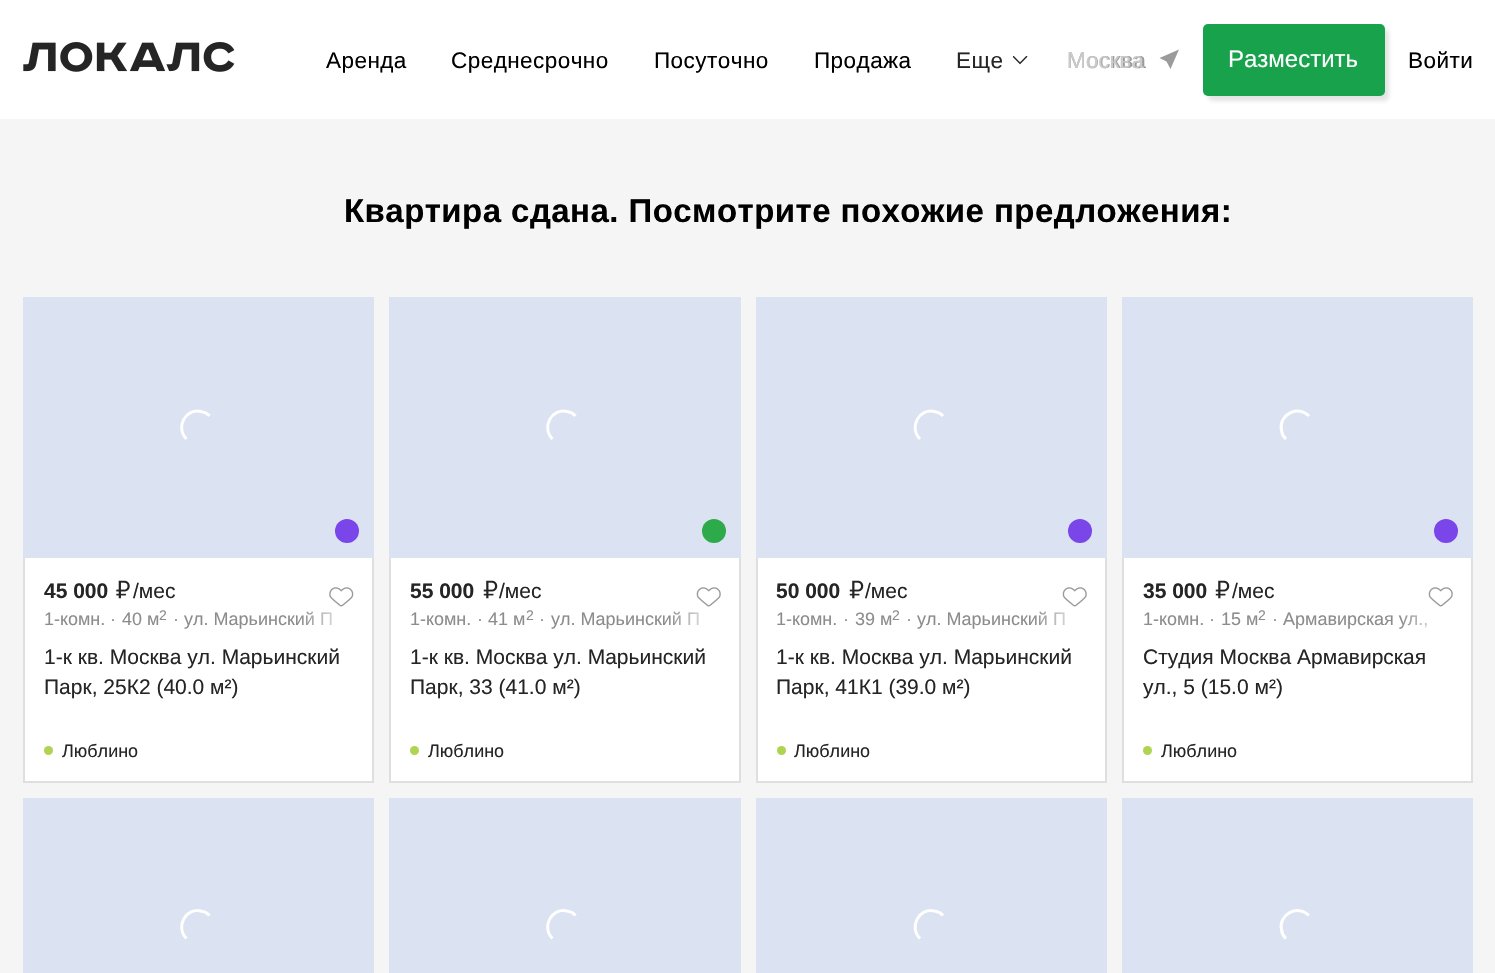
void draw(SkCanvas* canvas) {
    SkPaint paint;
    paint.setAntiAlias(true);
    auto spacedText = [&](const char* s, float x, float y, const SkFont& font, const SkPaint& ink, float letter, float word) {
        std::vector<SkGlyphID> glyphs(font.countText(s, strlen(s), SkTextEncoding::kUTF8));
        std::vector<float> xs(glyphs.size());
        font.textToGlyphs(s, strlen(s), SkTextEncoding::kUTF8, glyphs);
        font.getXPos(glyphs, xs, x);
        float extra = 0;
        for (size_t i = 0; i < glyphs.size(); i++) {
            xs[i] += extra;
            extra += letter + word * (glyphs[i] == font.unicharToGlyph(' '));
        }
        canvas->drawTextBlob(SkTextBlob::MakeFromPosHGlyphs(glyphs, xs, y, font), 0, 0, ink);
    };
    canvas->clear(0xFFFFFFFF);
    canvas->drawImageRect(SkImages::DeferredFromEncodedData(SkData::MakeFromFileName("img1.png")), SkRect::MakeXYWH(23, 42, 212, 30), SkSamplingOptions());
    SkFont font1(fontMgr->matchFamilyStyle("Liberation Sans", SkFontStyle::Normal()), 22.5f);
    font1.setSubpixel(true);
    paint.setColor(0xFF000000);
    spacedText("Аренда", 326, 68, font1, paint, 0.45f, 0);
    spacedText("Среднесрочно", 451, 68, font1, paint, 0.45f, 0);
    spacedText("Посуточно", 654, 68, font1, paint, 0.45f, 0);
    spacedText("Продажа", 814, 68, font1, paint, 0.45f, 0);
    paint.setColor(0xFF252525);
    spacedText("Еще", 956, 68, font1, paint, 0.45f, 0);
    canvas->drawImageRect(SkImages::DeferredFromEncodedData(SkData::MakeFromFileName("img2.png")), SkRect::MakeXYWH(1013, 56, 15, 9), SkSamplingOptions());
    paint.setColor(0xFF9B9B9B);
    spacedText("Москва", 1067, 68, font1, paint, 0.45f, 0);
    canvas->drawPath(SkPathBuilder().moveTo(1179, 49.5f).lineTo(1159.5f, 58).lineTo(1166.5f, 61.5f).lineTo(1170.5f, 69).close().detach(), paint);
    paint.setColor(0xFFCACACA);
    canvas->drawString("Москва", 1067, 68, font1, paint);
    paint.setColor(0x80C7C7C7);
    paint.setMaskFilter(SkMaskFilter::MakeBlur(kNormal_SkBlurStyle, 2));
    canvas->drawRoundRect(SkRect::MakeXYWH(1208, 29, 181, 72), 5, 5, paint);
    paint.setMaskFilter(nullptr);
    paint.setColor(0xFF18A24B);
    canvas->drawRoundRect(SkRect::MakeXYWH(1203, 24, 182, 72), 5, 5, paint);
    SkFont font2(fontMgr->matchFamilyStyle("Liberation Sans", SkFontStyle::Normal()), 24);
    font2.setSubpixel(true);
    paint.setColor(0xFFFFFFFF);
    canvas->drawString("Разместить", 1228, 67, font2, paint);
    paint.setColor(0xFF000000);
    spacedText("Войти", 1408, 68, font1, paint, 0.45f, 0);
    paint.setColor(0xFFF5F5F5);
    canvas->drawRect(SkRect::MakeXYWH(0, 119, 1495, 854), paint);
    SkFont font3(fontMgr->matchFamilyStyle("Liberation Sans", SkFontStyle::Bold()), 33);
    font3.setSubpixel(true);
    paint.setColor(0xFF000000);
    spacedText("Квартира сдана. Посмотрите похожие предложения:", 344, 222, font3, paint, 0.45f, 0);
    paint.setColor(0xFFFFFFFF);
    canvas->drawRect(SkRect::MakeXYWH(25, 558, 347, 223), paint);
    paint.setStyle(SkPaint::kStroke_Style);
    paint.setStrokeWidth(2);
    paint.setColor(0xFFDFDFDF);
    canvas->drawRect(SkRect::MakeXYWH(24, 298, 349, 484), paint);
    paint.setStyle(SkPaint::kFill_Style);
    paint.setColor(0xFFDBE2F1);
    canvas->drawRect(SkRect::MakeXYWH(23, 297, 351, 261), paint);
    paint.setStyle(SkPaint::kStroke_Style);
    paint.setStrokeWidth(3);
    paint.setColor(0xFFFFFFFF);
    canvas->drawPath(SkPathBuilder().moveTo(186.5f, 439).cubicTo(175, 427.5f, 185.5f, 408, 201, 411.5f).cubicTo(204.5f, 412, 207.5f, 413.5f, 209.5f, 416).detach(), paint);
    paint.setStyle(SkPaint::kFill_Style);
    paint.setColor(0xFF7A45E9);
    canvas->drawCircle(347, 531, 12, paint);
    SkFont font4(fontMgr->matchFamilyStyle("Liberation Sans", SkFontStyle::Bold()), 21);
    font4.setSubpixel(true);
    paint.setColor(0xFF252525);
    canvas->drawString("45 000", 44, 598, font4, paint);
    canvas->drawImageRect(SkImages::DeferredFromEncodedData(SkData::MakeFromFileName("img3.png")), SkRect::MakeXYWH(116, 580, 14, 19), SkSamplingOptions());
    SkFont font5(fontMgr->matchFamilyStyle("Liberation Sans", SkFontStyle::Normal()), 21);
    font5.setSubpixel(true);
    canvas->drawString("/мес", 133, 598, font5, paint);
    canvas->drawImageRect(SkImages::DeferredFromEncodedData(SkData::MakeFromFileName("img4.png")), SkRect::MakeXYWH(329, 587, 25, 20), SkSamplingOptions());
    SkFont font6(fontMgr->matchFamilyStyle("Liberation Sans", SkFontStyle::Normal()), 14);
    font6.setSubpixel(true);
    paint.setColor(0xFF8C8C8C);
    canvas->drawString("2", 159, 620, font6, paint);
    SkFont font7(fontMgr->matchFamilyStyle("Liberation Sans", SkFontStyle::Normal()), 18);
    font7.setSubpixel(true);
    canvas->drawString("ул. Марьинский П", 184, 625, font7, paint);
    canvas->drawString("1-комн.", 44, 625, font7, paint);
    canvas->drawString("·", 110, 625, font7, paint);
    canvas->drawString("40 м", 122, 625, font7, paint);
    canvas->drawString("·", 173, 625, font7, paint);
    {
        const SkColor colors[] = {0x00FFFFFF, 0xFFFFFFFF};
        const float stops[] = {0, 1};
        const SkPoint ends[] = {{300, 620}, {353, 620}};
        paint.setShader(SkGradientShader::MakeLinear(ends, colors, stops, 2, SkTileMode::kClamp));
        paint.setAlpha(255);
    }
    canvas->drawRect(SkRect::MakeXYWH(301, 611, 31, 14), paint);
    paint.setShader(nullptr);
    paint.setColor(0xFF252525);
    canvas->drawString("1-к кв. Москва ул. Марьинский", 44, 664, font5, paint);
    canvas->drawString("Парк, 25К2 (40.0 м²)", 44, 694, font5, paint);
    paint.setColor(0xFFB0D351);
    canvas->drawCircle(48.5f, 750.5f, 4.5f, paint);
    paint.setColor(0xFF252525);
    canvas->drawString("Люблино", 62, 757, font7, paint);
    paint.setColor(0xFFFFFFFF);
    canvas->drawRect(SkRect::MakeXYWH(391, 558, 348, 223), paint);
    paint.setStyle(SkPaint::kStroke_Style);
    paint.setStrokeWidth(2);
    paint.setColor(0xFFDFDFDF);
    canvas->drawRect(SkRect::MakeXYWH(390, 298, 350, 484), paint);
    paint.setStyle(SkPaint::kFill_Style);
    paint.setColor(0xFFDBE2F1);
    canvas->drawRect(SkRect::MakeXYWH(389, 297, 352, 261), paint);
    paint.setStyle(SkPaint::kStroke_Style);
    paint.setStrokeWidth(3);
    paint.setColor(0xFFFFFFFF);
    canvas->drawPath(SkPathBuilder().moveTo(552.5f, 439).cubicTo(541, 427.5f, 551.5f, 408, 567, 411.5f).cubicTo(570.5f, 412, 573.5f, 413.5f, 575.5f, 416).detach(), paint);
    paint.setStyle(SkPaint::kFill_Style);
    paint.setColor(0xFF2DAA4A);
    canvas->drawCircle(714, 531, 12, paint);
    paint.setColor(0xFF252525);
    canvas->drawString("55 000", 410, 598, font4, paint);
    canvas->drawImageRect(SkImages::DeferredFromEncodedData(SkData::MakeFromFileName("img5.png")), SkRect::MakeXYWH(483, 580, 15, 19), SkSamplingOptions());
    canvas->drawString("/мес", 499, 598, font5, paint);
    canvas->drawImageRect(SkImages::DeferredFromEncodedData(SkData::MakeFromFileName("img6.png")), SkRect::MakeXYWH(696, 587, 25, 20), SkSamplingOptions());
    paint.setColor(0xFF8C8C8C);
    canvas->drawString("2", 526, 620, font6, paint);
    canvas->drawString("ул. Марьинский П", 551, 625, font7, paint);
    canvas->drawString("1-комн.", 410, 625, font7, paint);
    canvas->drawString("·", 477, 625, font7, paint);
    canvas->drawString("41 м", 488, 625, font7, paint);
    canvas->drawString("·", 539, 625, font7, paint);
    {
        const SkColor colors[] = {0x00FFFFFF, 0xFFFFFFFF};
        const float stops[] = {0, 1};
        const SkPoint ends[] = {{668, 620}, {720, 620}};
        paint.setShader(SkGradientShader::MakeLinear(ends, colors, stops, 2, SkTileMode::kClamp));
        paint.setAlpha(255);
    }
    canvas->drawRect(SkRect::MakeXYWH(669, 611, 30, 14), paint);
    paint.setShader(nullptr);
    paint.setColor(0xFF252525);
    canvas->drawString("1-к кв. Москва ул. Марьинский", 410, 664, font5, paint);
    canvas->drawString("Парк, 33 (41.0 м²)", 410, 694, font5, paint);
    paint.setColor(0xFFB0D351);
    canvas->drawCircle(414.5f, 750.5f, 4.5f, paint);
    paint.setColor(0xFF252525);
    canvas->drawString("Люблино", 428, 757, font7, paint);
    paint.setColor(0xFFFFFFFF);
    canvas->drawRect(SkRect::MakeXYWH(758, 558, 347, 223), paint);
    paint.setStyle(SkPaint::kStroke_Style);
    paint.setStrokeWidth(2);
    paint.setColor(0xFFDFDFDF);
    canvas->drawRect(SkRect::MakeXYWH(757, 298, 349, 484), paint);
    paint.setStyle(SkPaint::kFill_Style);
    paint.setColor(0xFFDBE2F1);
    canvas->drawRect(SkRect::MakeXYWH(756, 297, 351, 261), paint);
    paint.setStyle(SkPaint::kStroke_Style);
    paint.setStrokeWidth(3);
    paint.setColor(0xFFFFFFFF);
    canvas->drawPath(SkPathBuilder().moveTo(920, 439).cubicTo(908.5f, 427.5f, 919, 408, 934.5f, 411.5f).cubicTo(938, 412, 941, 413.5f, 943, 416).detach(), paint);
    paint.setStyle(SkPaint::kFill_Style);
    paint.setColor(0xFF7A45E9);
    canvas->drawCircle(1080, 531, 12, paint);
    paint.setColor(0xFF252525);
    canvas->drawString("50 000", 776, 598, font4, paint);
    canvas->drawImageRect(SkImages::DeferredFromEncodedData(SkData::MakeFromFileName("img5.png")), SkRect::MakeXYWH(849, 580, 15, 19), SkSamplingOptions());
    canvas->drawString("/мес", 865, 598, font5, paint);
    canvas->drawImageRect(SkImages::DeferredFromEncodedData(SkData::MakeFromFileName("img6.png")), SkRect::MakeXYWH(1062, 587, 25, 20), SkSamplingOptions());
    paint.setColor(0xFF8C8C8C);
    canvas->drawString("2", 892, 620, font6, paint);
    canvas->drawString("ул. Марьинский П", 917, 625, font7, paint);
    canvas->drawString("1-комн.", 776, 625, font7, paint);
    canvas->drawString("·", 843, 625, font7, paint);
    canvas->drawString("39 м", 855, 625, font7, paint);
    canvas->drawString("·", 906, 625, font7, paint);
    {
        const SkColor colors[] = {0x00FFFFFF, 0xFFFFFFFF};
        const float stops[] = {0, 1};
        const SkPoint ends[] = {{1034, 620}, {1086, 620}};
        paint.setShader(SkGradientShader::MakeLinear(ends, colors, stops, 2, SkTileMode::kClamp));
        paint.setAlpha(255);
    }
    canvas->drawRect(SkRect::MakeXYWH(1035, 611, 30, 14), paint);
    paint.setShader(nullptr);
    paint.setColor(0xFF252525);
    canvas->drawString("1-к кв. Москва ул. Марьинский", 776, 664, font5, paint);
    canvas->drawString("Парк, 41К1 (39.0 м²)", 776, 694, font5, paint);
    paint.setColor(0xFFB0D351);
    canvas->drawCircle(781.5f, 750.5f, 4.5f, paint);
    paint.setColor(0xFF252525);
    canvas->drawString("Люблино", 794, 757, font7, paint);
    paint.setColor(0xFFFFFFFF);
    canvas->drawRect(SkRect::MakeXYWH(1124, 558, 347, 223), paint);
    paint.setStyle(SkPaint::kStroke_Style);
    paint.setStrokeWidth(2);
    paint.setColor(0xFFDFDFDF);
    canvas->drawRect(SkRect::MakeXYWH(1123, 298, 349, 484), paint);
    paint.setStyle(SkPaint::kFill_Style);
    paint.setColor(0xFFDBE2F1);
    canvas->drawRect(SkRect::MakeXYWH(1122, 297, 351, 261), paint);
    paint.setStyle(SkPaint::kStroke_Style);
    paint.setStrokeWidth(3);
    paint.setColor(0xFFFFFFFF);
    canvas->drawPath(SkPathBuilder().moveTo(1286, 439).cubicTo(1283.5f, 437, 1282, 434, 1281.5f, 430.5f).cubicTo(1278, 415, 1297.5f, 404.5f, 1309, 416).detach(), paint);
    paint.setStyle(SkPaint::kFill_Style);
    paint.setColor(0xFF7A45E9);
    canvas->drawCircle(1446, 531, 12, paint);
    paint.setColor(0xFF252525);
    canvas->drawString("35 000", 1143, 598, font4, paint);
    canvas->drawImageRect(SkImages::DeferredFromEncodedData(SkData::MakeFromFileName("img5.png")), SkRect::MakeXYWH(1215, 580, 15, 19), SkSamplingOptions());
    canvas->drawString("/мес", 1232, 598, font5, paint);
    canvas->drawImageRect(SkImages::DeferredFromEncodedData(SkData::MakeFromFileName("img6.png")), SkRect::MakeXYWH(1428, 587, 25, 20), SkSamplingOptions());
    paint.setColor(0xFF8C8C8C);
    canvas->drawString("1-комн.", 1143, 625, font7, paint);
    canvas->drawString("15 м", 1221, 625, font7, paint);
    canvas->drawString("2", 1258, 620, font6, paint);
    canvas->drawString("Армавирская ул.,", 1283, 625, font7, paint);
    canvas->drawString("·", 1209, 625, font7, paint);
    canvas->drawString("·", 1272, 625, font7, paint);
    {
        const SkColor colors[] = {0x00FFFFFF, 0xFFFFFFFF};
        const float stops[] = {0, 1};
        const SkPoint ends[] = {{1400, 620}, {1452, 620}};
        paint.setShader(SkGradientShader::MakeLinear(ends, colors, stops, 2, SkTileMode::kClamp));
        paint.setAlpha(255);
    }
    canvas->drawRect(SkRect::MakeXYWH(1401, 615, 26, 13), paint);
    paint.setShader(nullptr);
    paint.setColor(0xFF252525);
    canvas->drawString("Студия Москва Армавирская", 1143, 664, font5, paint);
    canvas->drawString("ул., 5 (15.0 м²)", 1143, 694, font5, paint);
    paint.setColor(0xFFB0D351);
    canvas->drawCircle(1147.5f, 750.5f, 4.5f, paint);
    paint.setColor(0xFF252525);
    canvas->drawString("Люблино", 1161, 757, font7, paint);
    paint.setColor(0xFFDBE2F1);
    canvas->drawRect(SkRect::MakeXYWH(23, 798, 351, 175), paint);
    paint.setStyle(SkPaint::kStroke_Style);
    paint.setColor(0xFFFFFFFF);
    canvas->drawPath(SkPathBuilder().moveTo(186.5f, 938.5f).cubicTo(175, 927, 185.5f, 907.5f, 201, 911).cubicTo(204.5f, 911.5f, 207.5f, 913, 209.5f, 915.5f).detach(), paint);
    paint.setStyle(SkPaint::kFill_Style);
    paint.setColor(0xFFDBE2F1);
    canvas->drawRect(SkRect::MakeXYWH(389, 798, 352, 175), paint);
    paint.setStyle(SkPaint::kStroke_Style);
    paint.setColor(0xFFFFFFFF);
    canvas->drawPath(SkPathBuilder().moveTo(552.5f, 938.5f).cubicTo(541, 927, 551.5f, 907.5f, 567, 911).cubicTo(570.5f, 911.5f, 573.5f, 913, 575.5f, 915.5f).detach(), paint);
    paint.setStyle(SkPaint::kFill_Style);
    paint.setColor(0xFFDBE2F1);
    canvas->drawRect(SkRect::MakeXYWH(756, 798, 351, 175), paint);
    paint.setStyle(SkPaint::kStroke_Style);
    paint.setColor(0xFFFFFFFF);
    canvas->drawPath(SkPathBuilder().moveTo(920, 938.5f).cubicTo(908.5f, 927, 919, 907.5f, 934.5f, 911).cubicTo(938, 911.5f, 941, 913, 943, 915.5f).detach(), paint);
    paint.setStyle(SkPaint::kFill_Style);
    paint.setColor(0xFFDBE2F1);
    canvas->drawRect(SkRect::MakeXYWH(1122, 798, 351, 175), paint);
    paint.setStyle(SkPaint::kStroke_Style);
    paint.setColor(0xFFFFFFFF);
    canvas->drawPath(SkPathBuilder().moveTo(1286, 938.5f).cubicTo(1283.5f, 936.5f, 1282, 933.5f, 1281.5f, 930).cubicTo(1278, 914.5f, 1297.5f, 904, 1309, 915.5f).detach(), paint);
}
